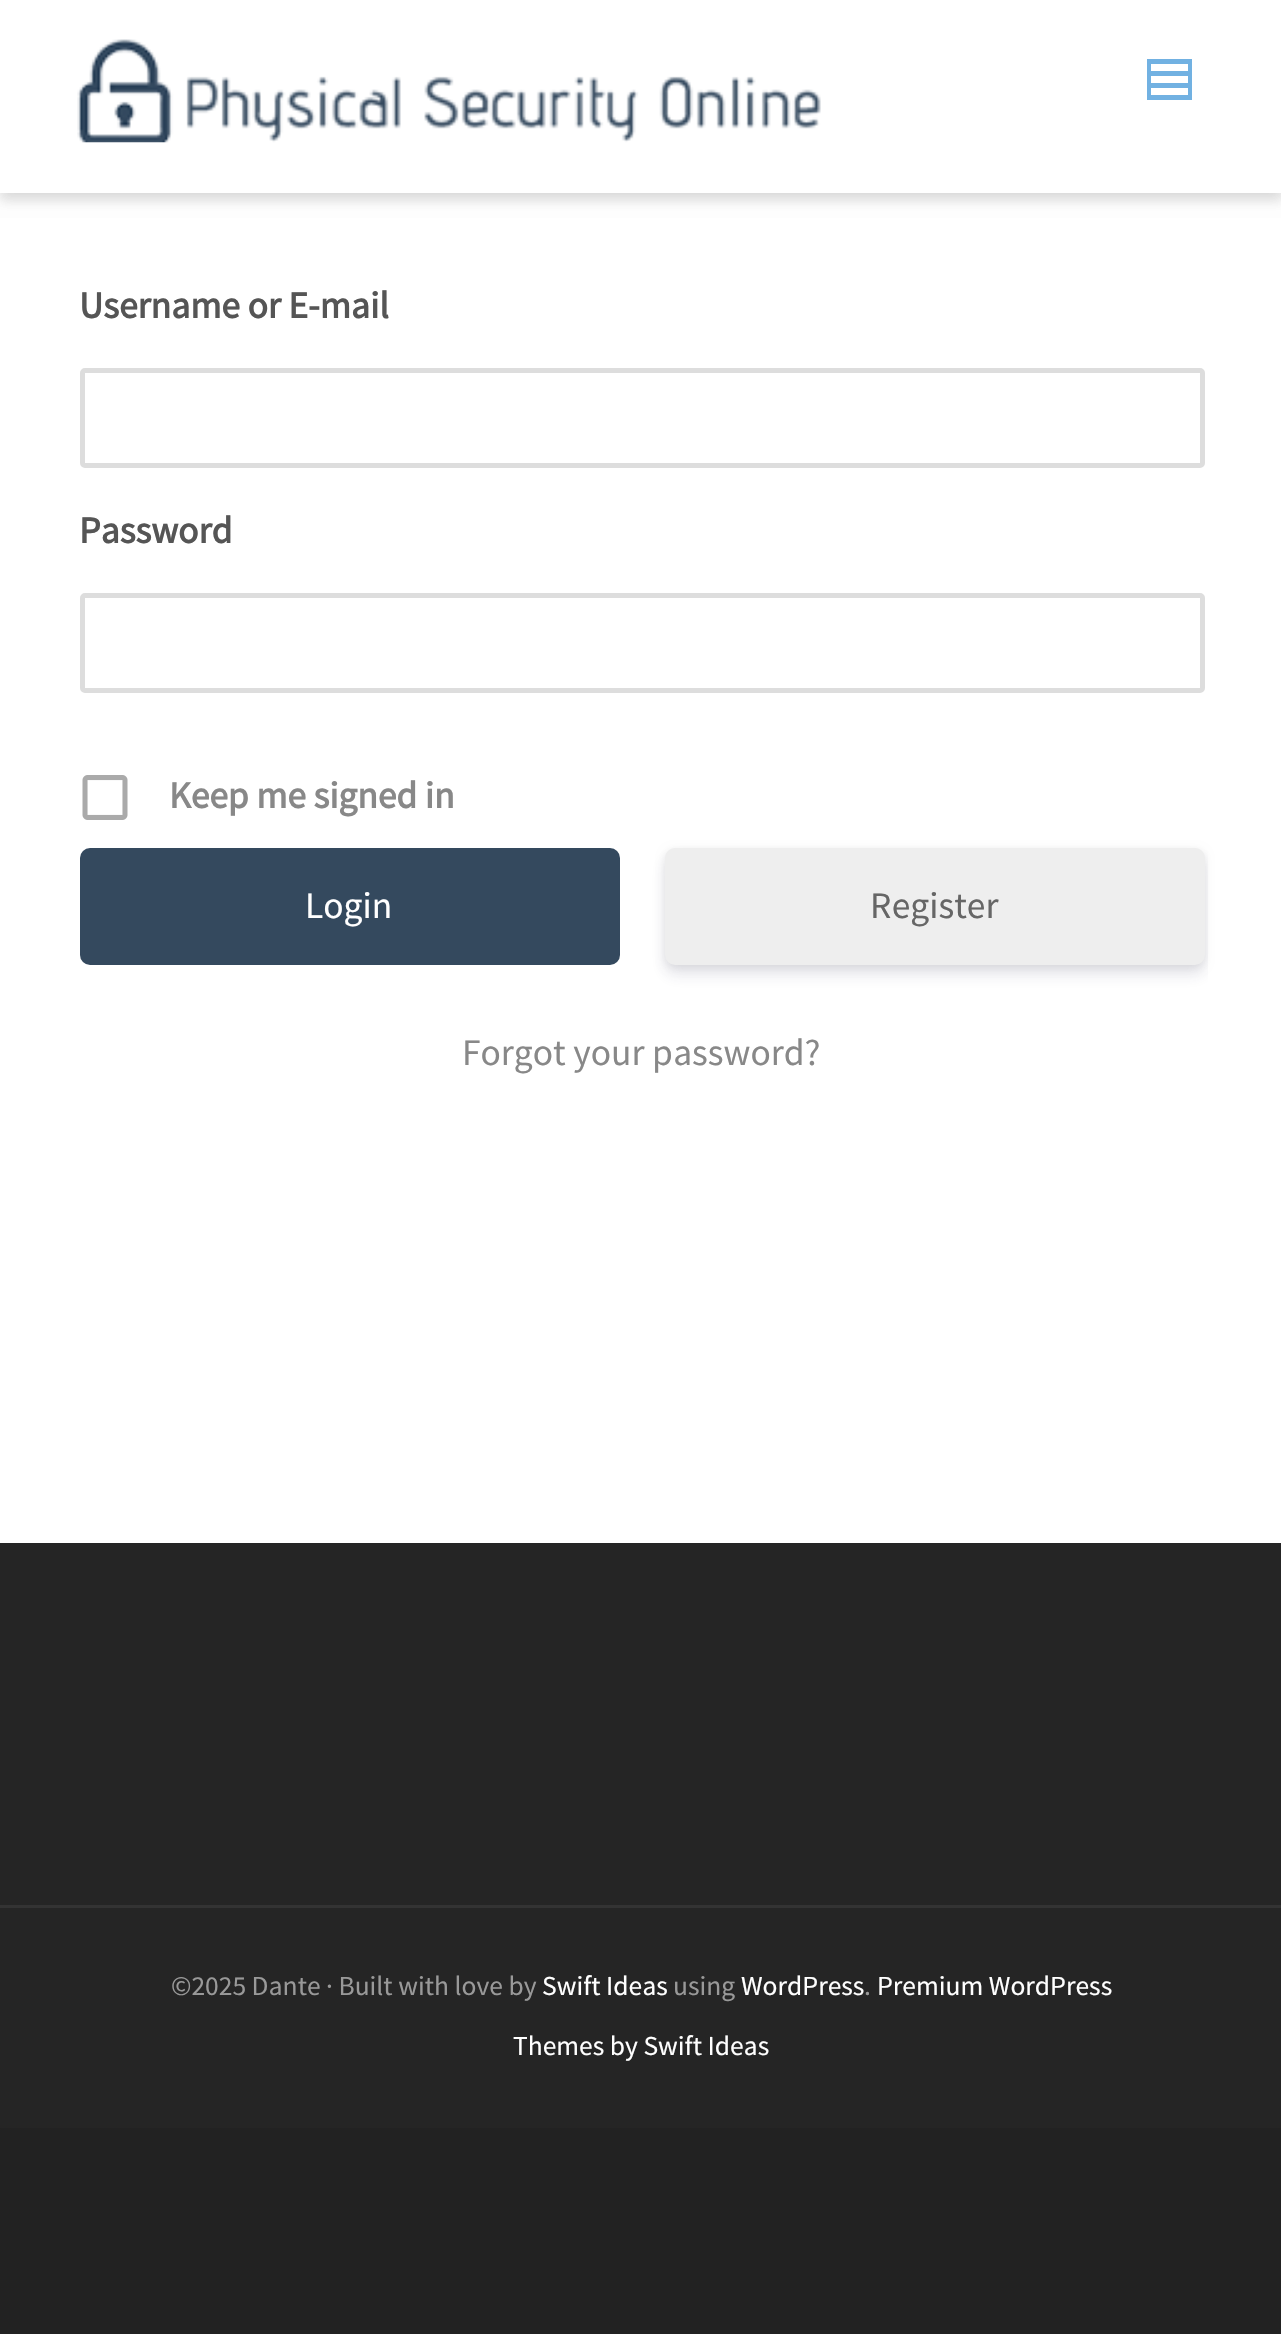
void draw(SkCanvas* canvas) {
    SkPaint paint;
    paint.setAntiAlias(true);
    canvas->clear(0xFF222222);
    paint.setColor(0xFFFFFFFF);
    canvas->drawRect(SkRect::MakeXYWH(0, 193, 1281, 1350), paint);
    paint.setColor(0x1A000000);
    paint.setMaskFilter(SkMaskFilter::MakeBlur(kNormal_SkBlurStyle, 6));
    canvas->drawRect(SkRect::MakeXYWH(0, 8, 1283, 192), paint);
    paint.setMaskFilter(nullptr);
    paint.setColor(0x0D000000);
    paint.setMaskFilter(SkMaskFilter::MakeBlur(kNormal_SkBlurStyle, 6));
    canvas->drawRect(SkRect::MakeXYWH(0, 8, 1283, 192), paint);
    paint.setMaskFilter(nullptr);
    paint.setColor(0xFFFFFFFF);
    canvas->drawRect(SkRect::MakeXYWH(0, 0, 1281, 193), paint);
    canvas->drawImageRect(SkImages::DeferredFromEncodedData(SkData::MakeFromFileName("img1.png")), SkRect::MakeXYWH(77, 39, 744, 104), SkSamplingOptions());
    paint.setColor(0xFF71B1E2);
    canvas->drawPath(SkPathBuilder().moveTo(1147, 59).lineTo(1192, 59).lineTo(1192, 100).lineTo(1147, 100).close().moveTo(1188, 64).lineTo(1151, 64).lineTo(1151, 71).lineTo(1188, 71).close().moveTo(1188, 76).lineTo(1151, 76).lineTo(1151, 83).lineTo(1188, 83).close().moveTo(1151, 95).lineTo(1188, 95).lineTo(1188, 88).lineTo(1151, 88).close().detach(), paint);
    SkFont font1(fontMgr->matchFamilyStyle("Source Sans Pro", SkFontStyle::Bold()), 37.5f);
    font1.setSubpixel(true);
    paint.setColor(0xFF555555);
    canvas->drawString("Username or E-mail", 79, 318, font1, paint);
    paint.setStyle(SkPaint::kStroke_Style);
    paint.setStrokeWidth(5);
    paint.setColor(0xFFDDDDDD);
    canvas->drawRoundRect(SkRect::MakeXYWH(82.5f, 370.5f, 1120, 95), 2.5f, 2.5f, paint);
    paint.setStyle(SkPaint::kFill_Style);
    paint.setColor(0xFF555555);
    canvas->drawString("Password", 79, 543, font1, paint);
    paint.setStyle(SkPaint::kStroke_Style);
    paint.setColor(0xFFDDDDDD);
    canvas->drawRoundRect(SkRect::MakeXYWH(82.5f, 595.5f, 1120, 95), 2.5f, 2.5f, paint);
    canvas->drawImageRect(SkImages::DeferredFromEncodedData(SkData::MakeFromFileName("img2.png")), SkRect::MakeXYWH(82, 775, 46, 45), SkSamplingOptions());
    paint.setStyle(SkPaint::kFill_Style);
    paint.setColor(0xFF888888);
    canvas->drawString("Keep me signed in", 169, 808, font1, paint);
    paint.setColor(0xFF34495E);
    canvas->drawRoundRect(SkRect::MakeXYWH(80, 848, 540, 117), 10, 10, paint);
    SkFont font2(fontMgr->matchFamilyStyle("Source Sans Pro", SkFontStyle::Normal()), 37.5f);
    font2.setSubpixel(true);
    paint.setColor(0xFFFFFFFF);
    canvas->drawString("Login", 305, 918, font2, paint);
    paint.setColor(0x14000000);
    paint.setMaskFilter(SkMaskFilter::MakeBlur(kNormal_SkBlurStyle, 4));
    canvas->drawRoundRect(SkRect::MakeXYWH(665, 850, 540, 118), 10, 10, paint);
    paint.setMaskFilter(nullptr);
    canvas->save();
    canvas->clipRect(SkRect::MakeXYWH(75, 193, 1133, 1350));
    paint.setColor(0x1C32325D);
    paint.setMaskFilter(SkMaskFilter::MakeBlur(kNormal_SkBlurStyle, 7.5f));
    canvas->drawRoundRect(SkRect::MakeXYWH(665, 858, 540, 117), 10, 10, paint);
    paint.setMaskFilter(nullptr);
    canvas->restore();
    paint.setColor(0xFFEEEEEE);
    canvas->drawRoundRect(SkRect::MakeXYWH(665, 848, 540, 117), 10, 10, paint);
    paint.setColor(0xFF666666);
    canvas->drawString("Register", 870, 918, font2, paint);
    paint.setColor(0xFF888888);
    canvas->drawString("Forgot your password?", 462, 1065, font2, paint);
    paint.setColor(0xFF252525);
    canvas->drawRect(SkRect::MakeXYWH(0, 1543, 1281, 362), paint);
    canvas->drawRect(SkRect::MakeXYWH(0, 1908, 1281, 220), paint);
    paint.setColor(0xFF333333);
    canvas->drawRect(SkRect::MakeXYWH(0, 1905, 1281, 3), paint);
    SkFont font3(fontMgr->matchFamilyStyle("Source Sans Pro", SkFontStyle::Normal()), 27.5f);
    font3.setSubpixel(true);
    paint.setColor(0xFF999999);
    canvas->drawString("©2025 Dante · Built with love by", 171, 1995, font3, paint);
    paint.setColor(0xFFFFFFFF);
    canvas->drawString("Swift Ideas", 542, 1995, font3, paint);
    paint.setColor(0xFF999999);
    canvas->drawString("using", 673, 1995, font3, paint);
    paint.setColor(0xFFFFFFFF);
    canvas->drawString("WordPress", 741, 1995, font3, paint);
    paint.setColor(0xFF999999);
    canvas->drawString(".", 864, 1995, font3, paint);
    paint.setColor(0xFFFFFFFF);
    canvas->drawString("Premium WordPress", 877, 1995, font3, paint);
    canvas->drawString("Themes by Swift Ideas", 513, 2055, font3, paint);
}
